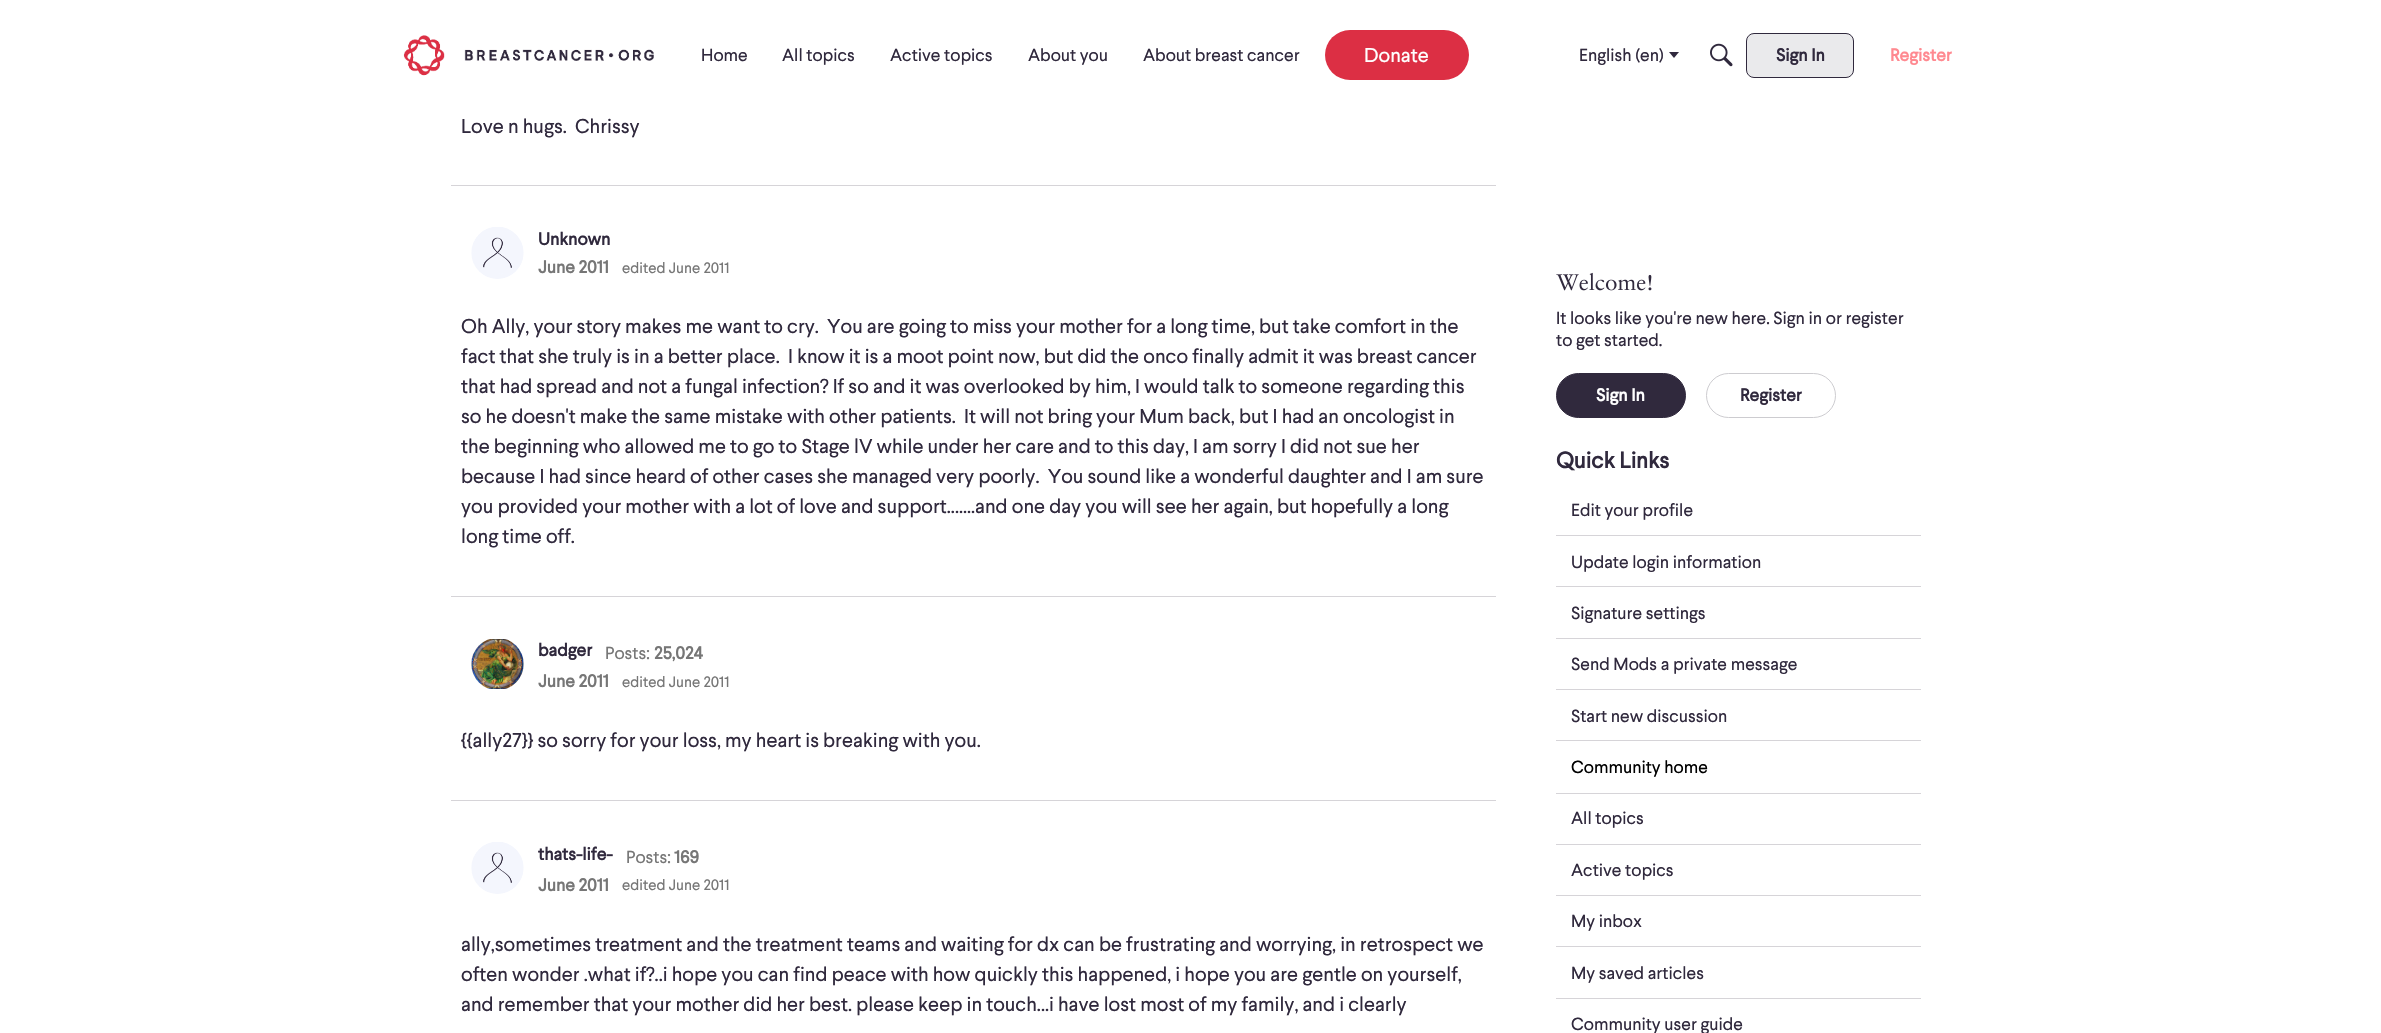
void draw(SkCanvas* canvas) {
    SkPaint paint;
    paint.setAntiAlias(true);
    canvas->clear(0xFFFFFFFF);
    canvas->drawImageRect(SkImages::DeferredFromEncodedData(SkData::MakeFromFileName("img1.png")), SkRect::MakeXYWH(403, 35, 251, 41), SkSamplingOptions());
    SkFont font1(fontMgr->matchFamilyStyle("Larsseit", SkFontStyle::Normal()), 17.5f);
    font1.setSubpixel(true);
    paint.setColor(0xFF30293D);
    canvas->drawString("Home", 701, 61, font1, paint);
    canvas->drawString("All topics", 782, 61, font1, paint);
    canvas->drawString("Active topics", 890, 61, font1, paint);
    canvas->drawString("About you", 1028, 61, font1, paint);
    canvas->drawString("About breast cancer", 1143, 61, font1, paint);
    paint.setColor(0xFFDC2F44);
    canvas->drawRoundRect(SkRect::MakeXYWH(1325, 30, 144, 50), 25, 25, paint);
    SkFont font2(fontMgr->matchFamilyStyle("Larsseit", SkFontStyle::Normal()), 20);
    font2.setSubpixel(true);
    paint.setColor(0xFFFFFFFF);
    canvas->drawString("Donate", 1364, 62, font2, paint);
    paint.setColor(0xFF30293D);
    canvas->drawString("English (en)", 1579, 61, font1, paint);
    canvas->drawPath(SkPathBuilder().moveTo(1669, 52).lineTo(1679, 52).lineTo(1674, 58).close().detach(), paint);
    canvas->drawImageRect(SkImages::DeferredFromEncodedData(SkData::MakeFromFileName("img2.png")), SkRect::MakeXYWH(1710, 43, 23, 24), SkSamplingOptions());
    paint.setColor(0xFFEAEAEC);
    canvas->drawRoundRect(SkRect::MakeXYWH(1746.5f, 33.5f, 107, 44), 7.5f, 7.5f, paint);
    paint.setStyle(SkPaint::kStroke_Style);
    paint.setStrokeWidth(1);
    paint.setColor(0xFF30293D);
    canvas->drawRoundRect(SkRect::MakeXYWH(1746.5f, 33.5f, 107, 44), 7.5f, 7.5f, paint);
    SkFont font3(fontMgr->matchFamilyStyle("Larsseit", SkFontStyle::Bold()), 17.5f);
    font3.setSubpixel(true);
    paint.setStyle(SkPaint::kFill_Style);
    canvas->drawString("Sign In", 1776, 61, font3, paint);
    paint.setColor(0xFFFF8990);
    canvas->drawString("Register", 1890, 61, font3, paint);
    paint.setColor(0xFF30293D);
    canvas->drawString("Love n hugs.  Chrissy", 461, 133, font2, paint);
    paint.setColor(0xFFD6D4D8);
    canvas->drawRect(SkRect::MakeXYWH(451, 185, 1045, 1), paint);
    canvas->drawImageRect(SkImages::DeferredFromEncodedData(SkData::MakeFromFileName("img3.png")), SkRect::MakeXYWH(471, 227, 53, 52), SkSamplingOptions());
    paint.setColor(0xFF30293D);
    canvas->drawString("Unknown", 538, 245, font3, paint);
    paint.setColor(0xFF767676);
    canvas->drawString("June 2011", 538, 273, font3, paint);
    SkFont font4(fontMgr->matchFamilyStyle("Larsseit", SkFontStyle::Normal()), 15);
    font4.setSubpixel(true);
    canvas->drawString("edited June 2011", 622, 273, font4, paint);
    paint.setColor(0xFF30293D);
    canvas->drawString("Oh Ally, your story makes me want to cry.  You are going to miss your mother for a long time, but take comfort in the", 461, 333, font2, paint);
    canvas->drawString("fact that she truly is in a better place.  I know it is a moot point now, but did the onco finally admit it was breast cancer", 461, 363, font2, paint);
    canvas->drawString("that had spread and not a fungal infection? If so and it was overlooked by him, I would talk to someone regarding this", 461, 393, font2, paint);
    canvas->drawString("so he doesn't make the same mistake with other patients.  It will not bring your Mum back, but I had an oncologist in", 461, 423, font2, paint);
    canvas->drawString("the beginning who allowed me to go to Stage lV while under her care and to this day, I am sorry I did not sue her", 461, 453, font2, paint);
    canvas->drawString("because I had since heard of other cases she managed very poorly.  You sound like a wonderful daughter and I am sure", 461, 483, font2, paint);
    canvas->drawString("you provided your mother with a lot of love and support.......and one day you will see her again, but hopefully a long", 461, 513, font2, paint);
    canvas->drawString("long time off.", 461, 543, font2, paint);
    paint.setColor(0xFFD6D4D8);
    canvas->drawRect(SkRect::MakeXYWH(451, 596, 1045, 1), paint);
    canvas->drawImageRect(SkImages::DeferredFromEncodedData(SkData::MakeFromFileName("img4.png")), SkRect::MakeXYWH(471, 639, 53, 50), SkSamplingOptions());
    paint.setColor(0xFF30293D);
    canvas->drawString("badger", 538, 656, font3, paint);
    paint.setColor(0xFF767676);
    canvas->drawString("Posts:", 605, 659, font1, paint);
    canvas->drawString("25,024", 654, 659, font3, paint);
    canvas->drawString("June 2011", 538, 687, font3, paint);
    canvas->drawString("edited June 2011", 622, 687, font4, paint);
    paint.setColor(0xFF30293D);
    canvas->drawString("{{ally27}} so sorry for your loss, my heart is breaking with you.", 461, 747, font2, paint);
    paint.setColor(0xFFD6D4D8);
    canvas->drawRect(SkRect::MakeXYWH(451, 800, 1045, 1), paint);
    canvas->drawImageRect(SkImages::DeferredFromEncodedData(SkData::MakeFromFileName("img3.png")), SkRect::MakeXYWH(471, 842, 53, 52), SkSamplingOptions());
    paint.setColor(0xFF30293D);
    canvas->drawString("thats-life-", 538, 860, font3, paint);
    paint.setColor(0xFF767676);
    canvas->drawString("Posts:", 626, 863, font1, paint);
    canvas->drawString("169", 674, 863, font3, paint);
    canvas->drawString("June 2011", 538, 891, font3, paint);
    canvas->drawString("edited June 2011", 622, 890, font4, paint);
    paint.setColor(0xFF30293D);
    canvas->drawString("ally,sometimes treatment and the treatment teams and waiting for dx can be frustrating and worrying, in retrospect we", 461, 951, font2, paint);
    canvas->drawString("often wonder .what if?..i hope you can find peace with how quickly this happened, i hope you are gentle on yourself,", 461, 981, font2, paint);
    canvas->drawString("and remember that your mother did her best. please keep in touch...i have lost most of my family, and i clearly", 461, 1011, font2, paint);
    canvas->drawImageRect(SkImages::DeferredFromEncodedData(SkData::MakeFromFileName("img5.png")), SkRect::MakeXYWH(1556, 272, 96, 19), SkSamplingOptions());
    canvas->drawString("It looks like you're new here. Sign in or register", 1556, 324, font1, paint);
    canvas->drawString("to get started.", 1556, 346, font1, paint);
    canvas->drawRoundRect(SkRect::MakeXYWH(1556.5f, 373.5f, 129, 44), 22, 22, paint);
    paint.setStyle(SkPaint::kStroke_Style);
    canvas->drawRoundRect(SkRect::MakeXYWH(1556.5f, 373.5f, 129, 44), 22, 22, paint);
    paint.setStyle(SkPaint::kFill_Style);
    paint.setColor(0xFFFFFFFF);
    canvas->drawString("Sign In", 1596, 401, font3, paint);
    paint.setStyle(SkPaint::kStroke_Style);
    paint.setColor(0xFFCDCCD0);
    canvas->drawRoundRect(SkRect::MakeXYWH(1706.5f, 373.5f, 129, 44), 22, 22, paint);
    paint.setStyle(SkPaint::kFill_Style);
    paint.setColor(0xFF30293D);
    canvas->drawString("Register", 1740, 401, font3, paint);
    SkFont font5(fontMgr->matchFamilyStyle("Larsseit", SkFontStyle::Bold()), 22.5f);
    font5.setSubpixel(true);
    canvas->drawString("Quick Links", 1556, 468, font5, paint);
    paint.setColor(0xFFD6D4D8);
    canvas->drawRect(SkRect::MakeXYWH(1556, 535, 365, 1), paint);
    paint.setColor(0xFF30293D);
    canvas->drawString("Edit your profile", 1571, 516, font1, paint);
    paint.setColor(0xFFD6D4D8);
    canvas->drawRect(SkRect::MakeXYWH(1556, 586, 365, 1), paint);
    paint.setColor(0xFF30293D);
    canvas->drawString("Update login information", 1571, 568, font1, paint);
    paint.setColor(0xFFD6D4D8);
    canvas->drawRect(SkRect::MakeXYWH(1556, 638, 365, 1), paint);
    paint.setColor(0xFF30293D);
    canvas->drawString("Signature settings", 1571, 619, font1, paint);
    paint.setColor(0xFFD6D4D8);
    canvas->drawRect(SkRect::MakeXYWH(1556, 689, 365, 1), paint);
    paint.setColor(0xFF30293D);
    canvas->drawString("Send Mods a private message", 1571, 670, font1, paint);
    paint.setColor(0xFFD6D4D8);
    canvas->drawRect(SkRect::MakeXYWH(1556, 740, 365, 1), paint);
    paint.setColor(0xFF30293D);
    canvas->drawString("Start new discussion", 1571, 722, font1, paint);
    paint.setColor(0xFFD6D4D8);
    canvas->drawRect(SkRect::MakeXYWH(1556, 793, 365, 1), paint);
    paint.setColor(0xFF000000);
    canvas->drawString("Community home", 1571, 773, font1, paint);
    paint.setColor(0xFFD6D4D8);
    canvas->drawRect(SkRect::MakeXYWH(1556, 844, 365, 1), paint);
    paint.setColor(0xFF30293D);
    canvas->drawString("All topics", 1571, 824, font1, paint);
    paint.setColor(0xFFD6D4D8);
    canvas->drawRect(SkRect::MakeXYWH(1556, 895, 365, 1), paint);
    paint.setColor(0xFF30293D);
    canvas->drawString("Active topics", 1571, 876, font1, paint);
    paint.setColor(0xFFD6D4D8);
    canvas->drawRect(SkRect::MakeXYWH(1556, 946, 365, 1), paint);
    paint.setColor(0xFF30293D);
    canvas->drawString("My inbox", 1571, 927, font1, paint);
    paint.setColor(0xFFD6D4D8);
    canvas->drawRect(SkRect::MakeXYWH(1556, 998, 365, 1), paint);
    paint.setColor(0xFF30293D);
    canvas->drawString("My saved articles", 1571, 979, font1, paint);
    canvas->drawString("Community user guide", 1571, 1030, font1, paint);
}
